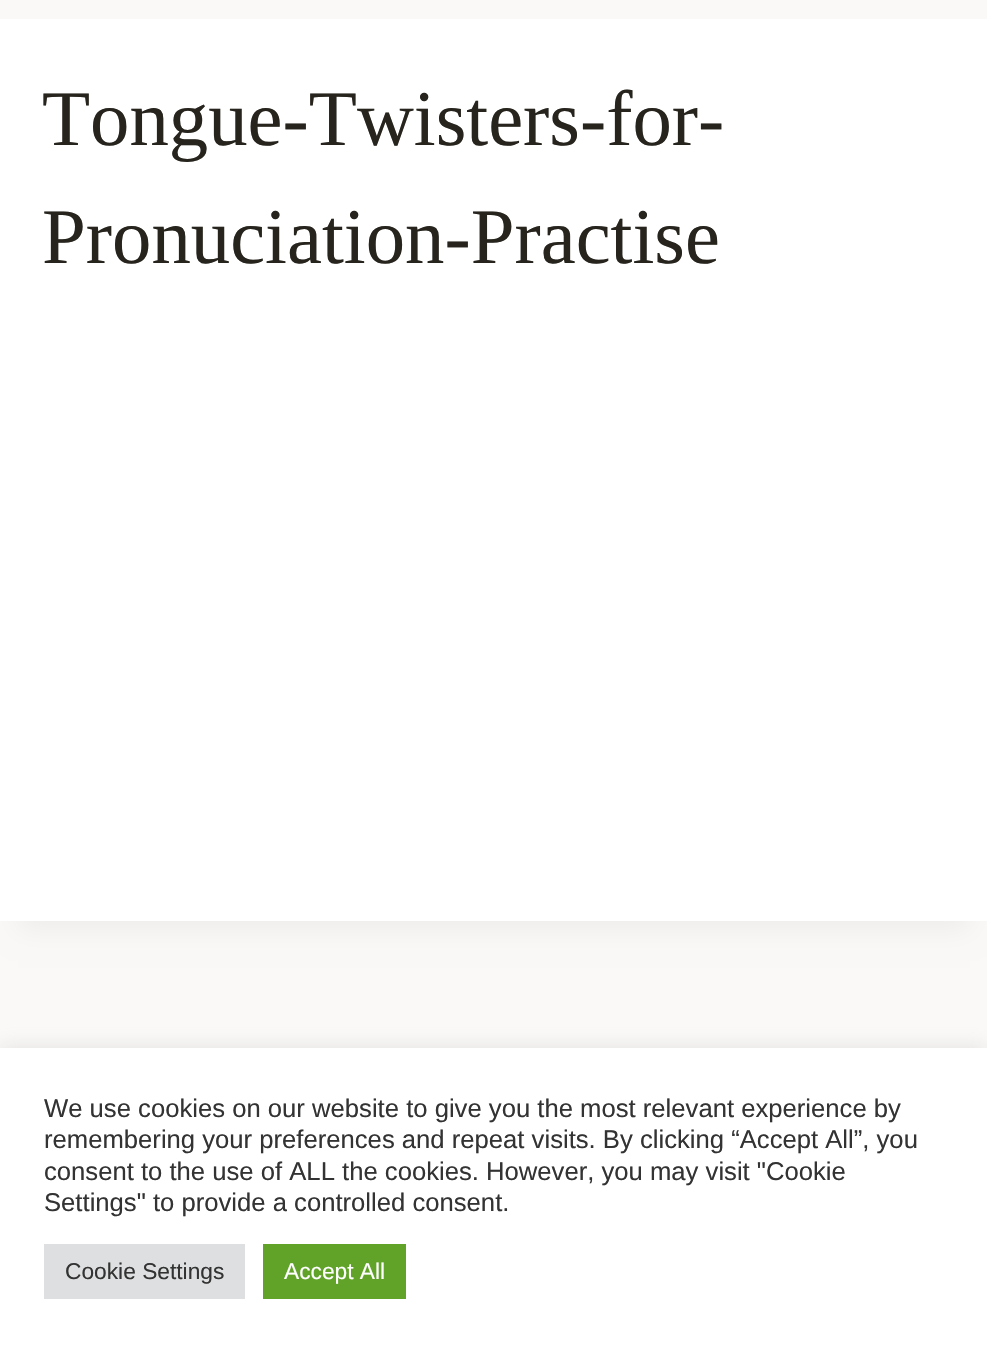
void draw(SkCanvas* canvas) {
    SkPaint paint;
    paint.setAntiAlias(true);
    canvas->clear(0xFFFAF9F7);
    paint.setColor(0x0D000000);
    paint.setMaskFilter(SkMaskFilter::MakeBlur(kNormal_SkBlurStyle, 13));
    canvas->drawRect(SkRect::MakeXYWH(18, 63, 952, 866), paint);
    paint.setMaskFilter(nullptr);
    paint.setColor(0xFFFFFFFF);
    canvas->drawRect(SkRect::MakeXYWH(0, 19, 987, 902), paint);
    SkFont font1(fontMgr->matchFamilyStyle("Liberation Serif", SkFontStyle::Normal()), 78.75f);
    font1.setSubpixel(true);
    paint.setColor(0xFF27241D);
    canvas->drawString("Tongue-Twisters-for-", 42, 145, font1, paint);
    canvas->drawString("Pronuciation-Practise", 42, 263, font1, paint);
    paint.setColor(0x4DACABAB);
    paint.setMaskFilter(SkMaskFilter::MakeBlur(kNormal_SkBlurStyle, 9));
    canvas->drawRect(SkRect::MakeXYWH(0, 1047, 987, 302), paint);
    paint.setMaskFilter(nullptr);
    paint.setColor(0xFFFFFFFF);
    canvas->drawRect(SkRect::MakeXYWH(0, 1048, 987, 303), paint);
    SkFont font2(fontMgr->matchFamilyStyle("Liberation Sans", SkFontStyle::Normal()), 25.65f);
    font2.setSubpixel(true);
    paint.setColor(0xFF333333);
    canvas->drawString("We use cookies on our website to give you the most relevant experience by", 44, 1117, font2, paint);
    canvas->drawString("remembering your preferences and repeat visits. By clicking “Accept All”, you", 44, 1148, font2, paint);
    canvas->drawString("consent to the use of ALL the cookies. However, you may visit \"Cookie", 44, 1180, font2, paint);
    canvas->drawString("Settings\" to provide a controlled consent.", 44, 1211, font2, paint);
    paint.setColor(0xFFDEDFE0);
    canvas->drawRect(SkRect::MakeXYWH(44, 1244, 201, 55), paint);
    SkFont font3(fontMgr->matchFamilyStyle("Liberation Sans", SkFontStyle::Normal()), 22.75f);
    font3.setSubpixel(true);
    paint.setColor(0xFF333333);
    canvas->drawString("Cookie Settings", 65, 1279, font3, paint);
    paint.setColor(0xFF61A229);
    canvas->drawRect(SkRect::MakeXYWH(263, 1244, 143, 55), paint);
    paint.setColor(0xFFFFFFFF);
    canvas->drawString("Accept All", 284, 1279, font3, paint);
}
